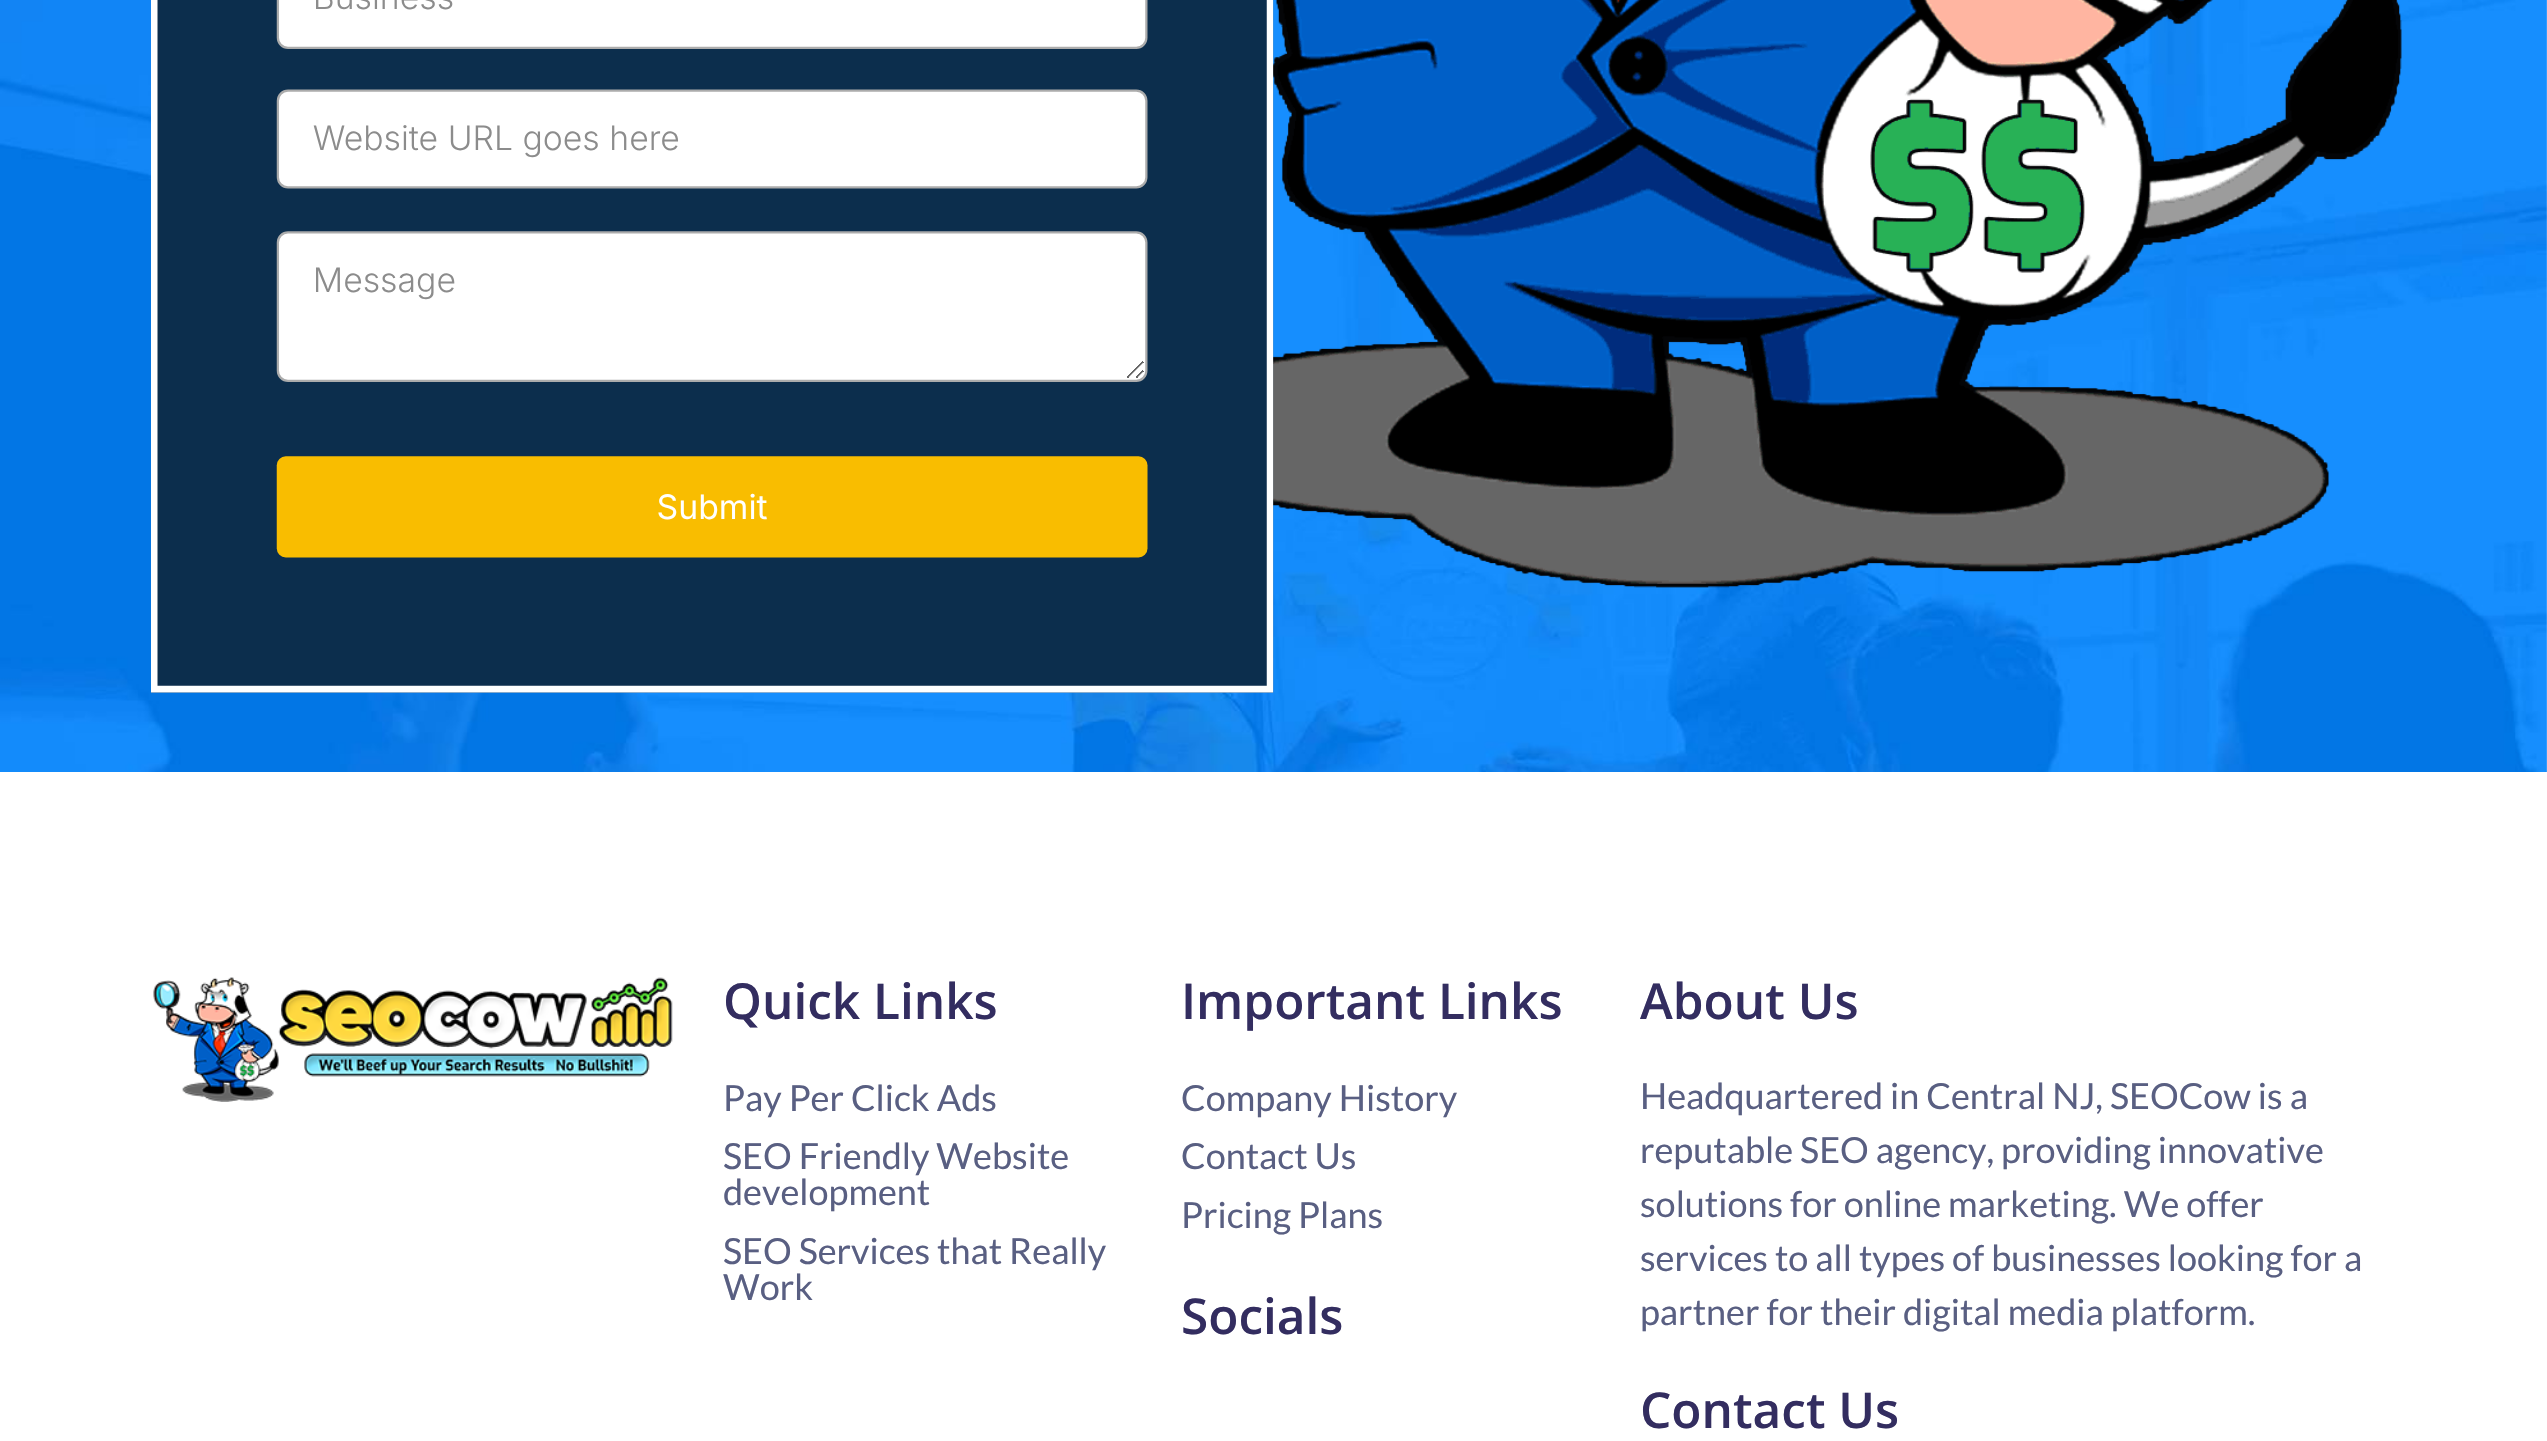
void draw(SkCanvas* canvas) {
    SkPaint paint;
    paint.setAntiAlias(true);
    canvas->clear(0xFFFFFFFF);
    canvas->drawImageRect(SkImages::DeferredFromEncodedData(SkData::MakeFromFileName("img1.png")), SkRect::MakeXYWH(0, 0, 2547, 772), SkSamplingOptions());
    canvas->drawImageRect(SkImages::DeferredFromEncodedData(SkData::MakeFromFileName("img2.png")), SkRect::MakeXYWH(1273, 0, 1129, 588), SkSamplingOptions());
    canvas->drawImageRect(SkImages::DeferredFromEncodedData(SkData::MakeFromFileName("img3.png")), SkRect::MakeXYWH(150, 0, 1124, 693), SkSamplingOptions());
    canvas->drawImageRect(SkImages::DeferredFromEncodedData(SkData::MakeFromFileName("img4.png")), SkRect::MakeXYWH(153, 977, 520, 125), SkSamplingOptions());
    SkFont font1(fontMgr->matchFamilyStyle("Open Sans", SkFontStyle(600, SkFontStyle::kNormal_Width, SkFontStyle::kUpright_Slant)), 49.5f);
    font1.setSubpixel(true);
    paint.setColor(0xFF332D60);
    canvas->drawString("Quick Links", 723, 1019, font1, paint);
    SkFont font2(fontMgr->matchFamilyStyle("Lato", SkFontStyle::Normal()), 36);
    font2.setSubpixel(true);
    paint.setColor(0xFF595F82);
    canvas->drawString("Pay Per Click Ads", 723, 1111, font2, paint);
    canvas->drawString("SEO Friendly Website", 723, 1169, font2, paint);
    canvas->drawString("development", 723, 1205, font2, paint);
    canvas->drawString("SEO Services that Really", 723, 1264, font2, paint);
    canvas->drawString("Work", 723, 1300, font2, paint);
    paint.setColor(0xFF332D60);
    canvas->drawString("Important Links", 1181, 1019, font1, paint);
    paint.setColor(0xFF595F82);
    canvas->drawString("Company History", 1181, 1111, font2, paint);
    canvas->drawString("Contact Us", 1181, 1169, font2, paint);
    canvas->drawString("Pricing Plans", 1181, 1228, font2, paint);
    paint.setColor(0xFF332D60);
    canvas->drawString("Socials", 1181, 1334, font1, paint);
    canvas->drawString("About Us", 1640, 1019, font1, paint);
    paint.setColor(0xFF595F82);
    canvas->drawString("Headquartered in Central NJ, SEOCow is a", 1640, 1109, font2, paint);
    canvas->drawString("reputable SEO agency, providing innovative", 1640, 1163, font2, paint);
    canvas->drawString("solutions for online marketing. We offer", 1640, 1217, font2, paint);
    canvas->drawString("services to all types of businesses looking for a", 1640, 1271, font2, paint);
    canvas->drawString("partner for their digital media platform.", 1640, 1325, font2, paint);
    paint.setColor(0xFF332D60);
    canvas->drawString("Contact Us", 1640, 1428, font1, paint);
}
